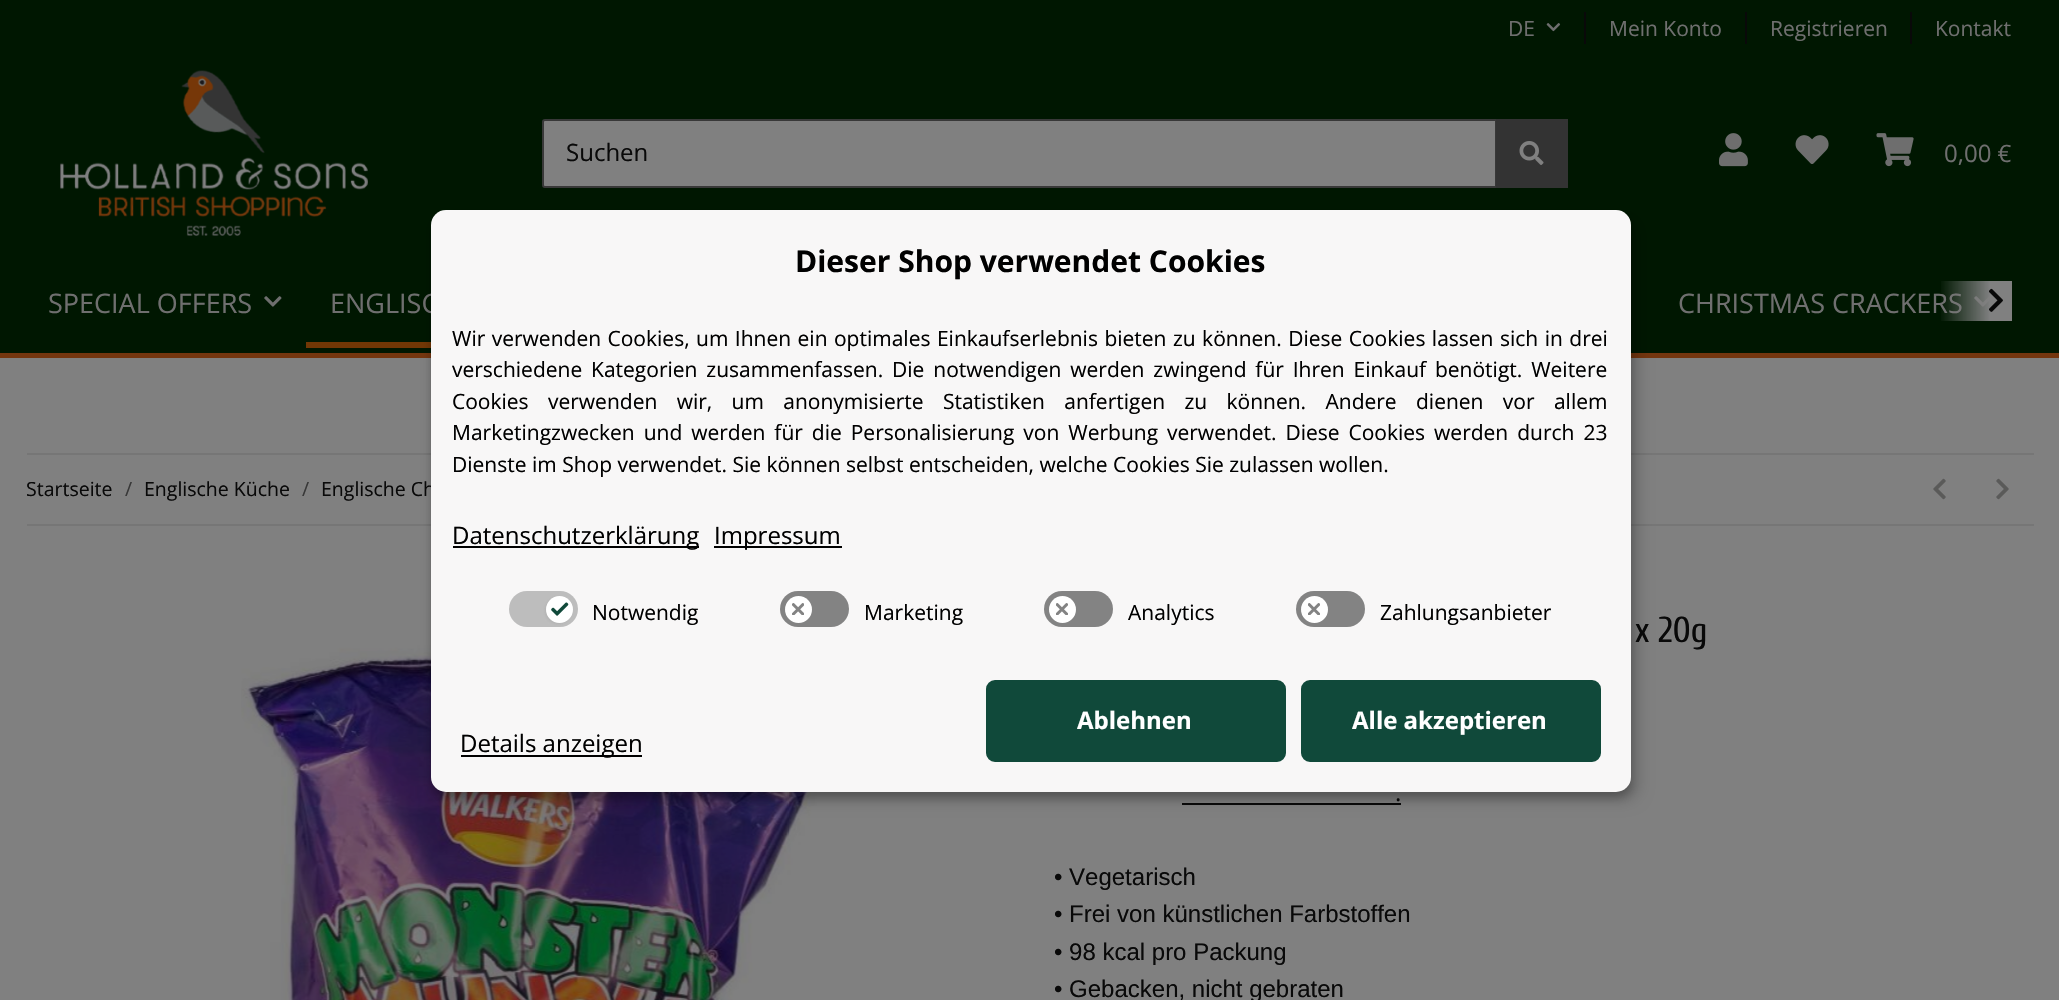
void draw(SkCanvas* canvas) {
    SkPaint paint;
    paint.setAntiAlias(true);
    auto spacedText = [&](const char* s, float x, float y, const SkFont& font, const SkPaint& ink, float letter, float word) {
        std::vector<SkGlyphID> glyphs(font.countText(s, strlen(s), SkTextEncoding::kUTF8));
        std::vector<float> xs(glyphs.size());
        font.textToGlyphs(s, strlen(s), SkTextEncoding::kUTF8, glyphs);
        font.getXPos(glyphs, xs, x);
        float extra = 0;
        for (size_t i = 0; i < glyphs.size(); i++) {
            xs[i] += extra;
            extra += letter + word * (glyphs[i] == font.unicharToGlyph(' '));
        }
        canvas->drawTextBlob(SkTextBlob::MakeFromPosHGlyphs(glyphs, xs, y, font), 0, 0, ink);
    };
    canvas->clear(0xFF808080);
    paint.setColor(0xFF001701);
    canvas->drawRect(SkRect::MakeXYWH(0, 0, 2059, 353), paint);
    paint.setColor(0xFF74360F);
    canvas->drawRect(SkRect::MakeXYWH(0, 353, 2059, 5), paint);
    SkFont font1(fontMgr->matchFamilyStyle("Open Sans", SkFontStyle::Normal()), 21);
    font1.setSubpixel(true);
    paint.setColor(0xFF6F6F6F);
    canvas->drawString("DE", 1508, 36, font1, paint);
    canvas->drawImageRect(SkImages::DeferredFromEncodedData(SkData::MakeFromFileName("img1.png")), SkRect::MakeXYWH(1546, 23, 15, 9), SkSamplingOptions());
    paint.setColor(0xFF090909);
    canvas->drawRect(SkRect::MakeXYWH(1584, 12, 2, 32), paint);
    paint.setColor(0xFF6F6F6F);
    canvas->drawString("Mein Konto", 1609, 36, font1, paint);
    paint.setColor(0xFF090909);
    canvas->drawRect(SkRect::MakeXYWH(1745, 12, 2, 32), paint);
    paint.setColor(0xFF6F6F6F);
    canvas->drawString("Registrieren", 1770, 36, font1, paint);
    paint.setColor(0xFF090909);
    canvas->drawRect(SkRect::MakeXYWH(1910, 12, 2, 32), paint);
    paint.setColor(0xFF6F6F6F);
    canvas->drawString("Kontakt", 1935, 36, font1, paint);
    canvas->drawImageRect(SkImages::DeferredFromEncodedData(SkData::MakeFromFileName("img2.png")), SkRect::MakeXYWH(60, 70, 308, 166), SkSamplingOptions());
    paint.setColor(0xFF808080);
    canvas->drawRect(SkRect::MakeXYWH(544, 121, 951, 65), paint);
    paint.setStyle(SkPaint::kStroke_Style);
    paint.setStrokeWidth(2);
    paint.setColor(0xFF383838);
    canvas->drawPath(SkPathBuilder().moveTo(545, 120).lineTo(1496, 120).lineTo(1496, 187).lineTo(545, 187).cubicTo(544, 187, 543, 186, 543, 185).lineTo(543, 122).cubicTo(543, 121, 544, 120, 545, 120).close().detach(), paint);
    SkFont font2(fontMgr->matchFamilyStyle("Open Sans", SkFontStyle::Normal()), 24);
    font2.setSubpixel(true);
    paint.setStyle(SkPaint::kFill_Style);
    paint.setColor(0xFF090909);
    canvas->drawString("Suchen", 566, 161, font2, paint);
    paint.setColor(0xFF333333);
    canvas->drawRect(SkRect::MakeXYWH(1496, 119, 72, 69), paint);
    canvas->drawImageRect(SkImages::DeferredFromEncodedData(SkData::MakeFromFileName("img3.png")), SkRect::MakeXYWH(1519, 141, 25, 24), SkSamplingOptions());
    canvas->drawImageRect(SkImages::DeferredFromEncodedData(SkData::MakeFromFileName("img4.png")), SkRect::MakeXYWH(1719, 133, 29, 34), SkSamplingOptions());
    canvas->drawImageRect(SkImages::DeferredFromEncodedData(SkData::MakeFromFileName("img5.png")), SkRect::MakeXYWH(1795, 135, 34, 29), SkSamplingOptions());
    canvas->drawImageRect(SkImages::DeferredFromEncodedData(SkData::MakeFromFileName("img6.png")), SkRect::MakeXYWH(1876, 133, 38, 34), SkSamplingOptions());
    paint.setColor(0xFF6F6F6F);
    canvas->drawString("0,00 €", 1944, 162, font2, paint);
    SkFont font3(fontMgr->matchFamilyStyle("Open Sans", SkFontStyle::Normal()), 27);
    font3.setSubpixel(true);
    canvas->drawString("SPECIAL OFFERS", 48, 313, font3, paint);
    canvas->drawImageRect(SkImages::DeferredFromEncodedData(SkData::MakeFromFileName("img7.png")), SkRect::MakeXYWH(264, 296, 18, 11), SkSamplingOptions());
    canvas->drawString("ENGLISC", 330, 313, font3, paint);
    paint.setColor(0xFF723705);
    canvas->drawRect(SkRect::MakeXYWH(306, 342, 125, 6), paint);
    paint.setColor(0xFF6F6F6F);
    canvas->drawString("CHRISTMAS CRACKERS", 1678, 313, font3, paint);
    canvas->drawImageRect(SkImages::DeferredFromEncodedData(SkData::MakeFromFileName("img8.png")), SkRect::MakeXYWH(1974, 296, 16, 11), SkSamplingOptions());
    {
        const SkColor colors[] = {0x03808080, 0xFF808080};
        const float stops[] = {0, 0.7f};
        const SkPoint ends[] = {{1940, 301}, {2012, 301}};
        paint.setShader(SkGradientShader::MakeLinear(ends, colors, stops, 2, SkTileMode::kClamp));
        paint.setAlpha(255);
    }
    canvas->drawRect(SkRect::MakeXYWH(1941, 281, 71, 40), paint);
    canvas->drawImageRect(SkImages::DeferredFromEncodedData(SkData::MakeFromFileName("img9.png")), SkRect::MakeXYWH(1989, 288, 14, 24), SkSamplingOptions());
    paint.setShader(nullptr);
    paint.setColor(0xFF767676);
    canvas->drawRect(SkRect::MakeXYWH(27, 453, 2007, 2), paint);
    canvas->drawRect(SkRect::MakeXYWH(27, 524, 2007, 2), paint);
    canvas->drawImageRect(SkImages::DeferredFromEncodedData(SkData::MakeFromFileName("img16.png")), SkRect::MakeXYWH(241, 642, 589, 358), SkSamplingOptions());
    paint.setColor(0xFF090909);
    canvas->drawRect(SkRect::MakeXYWH(1182, 803, 219, 2), paint);
    paint.setColor(0x30000000);
    paint.setMaskFilter(SkMaskFilter::MakeBlur(kNormal_SkBlurStyle, 7.5f));
    canvas->drawRoundRect(SkRect::MakeXYWH(438, 218, 1200, 582), 15, 15, paint);
    paint.setMaskFilter(nullptr);
    paint.setColor(0x33000000);
    paint.setMaskFilter(SkMaskFilter::MakeBlur(kNormal_SkBlurStyle, 4.5f));
    canvas->drawRoundRect(SkRect::MakeXYWH(431, 216, 1200, 582), 15, 15, paint);
    paint.setMaskFilter(nullptr);
    SkFont font4(fontMgr->matchFamilyStyle("Open Sans", SkFontStyle::Normal()), 19.5f);
    font4.setSubpixel(true);
    paint.setColor(0xFF090909);
    canvas->drawString("Englische Ch", 321, 496, font4, paint);
    paint.setColor(0xFFF8F7F7);
    canvas->drawRoundRect(SkRect::MakeXYWH(431, 210, 1200, 582), 15, 15, paint);
    SkFont font5(fontMgr->matchFamilyStyle("Open Sans", SkFontStyle::Bold()), 30);
    font5.setSubpixel(true);
    paint.setColor(0xFF000000);
    canvas->drawString("Dieser Shop verwendet Cookies", 795, 272, font5, paint);
    spacedText("Wir verwenden Cookies, um Ihnen ein optimales Einkaufserlebnis bieten zu können. Diese Cookies lassen sich in drei", 452, 346, font1, paint, 0, 1);
    spacedText("verschiedene Kategorien zusammenfassen. Die notwendigen werden zwingend für Ihren Einkauf benötigt. Weitere", 452, 377, font1, paint, 0, 3.4f);
    spacedText("Cookies verwenden wir, um anonymisierte Statistiken anfertigen zu können. Andere dienen vor allem", 452, 409, font1, paint, 0, 13.9f);
    spacedText("Marketingzwecken und werden für die Personalisierung von Werbung verwendet. Diese Cookies werden durch 23", 452, 440, font1, paint, 0, 3.5f);
    canvas->drawString("Dienste im Shop verwendet. Sie können selbst entscheiden, welche Cookies Sie zulassen wollen.", 452, 472, font1, paint);
    canvas->drawRect(SkRect::MakeXYWH(453, 546, 246, 2), paint);
    canvas->drawString("Datenschutzerklärung", 452, 544, font2, paint);
    canvas->drawRect(SkRect::MakeXYWH(714, 546, 128, 2), paint);
    canvas->drawString("Impressum", 714, 544, font2, paint);
    paint.setColor(0xFFBDBDBD);
    canvas->drawRoundRect(SkRect::MakeXYWH(509, 591, 69, 36), 18, 18, paint);
    paint.setColor(0x73A3A3A3);
    paint.setMaskFilter(SkMaskFilter::MakeBlur(kNormal_SkBlurStyle, 1.5f));
    canvas->drawRoundRect(SkRect::MakeXYWH(545, 597, 27, 27), 13.5f, 13.5f, paint);
    paint.setMaskFilter(nullptr);
    paint.setColor(0xFFFFFFFF);
    canvas->drawCircle(559.5f, 609.5f, 13.5f, paint);
    canvas->drawImageRect(SkImages::DeferredFromEncodedData(SkData::MakeFromFileName("img10.png")), SkRect::MakeXYWH(551, 602, 18, 14), SkSamplingOptions());
    paint.setColor(0xFF000000);
    canvas->drawString("Notwendig", 592, 620, font1, paint);
    paint.setColor(0xFF838383);
    canvas->drawRoundRect(SkRect::MakeXYWH(780, 591, 69, 36), 18, 18, paint);
    paint.setColor(0xFFFFFFFF);
    canvas->drawCircle(798.5f, 609.5f, 13.5f, paint);
    canvas->drawImageRect(SkImages::DeferredFromEncodedData(SkData::MakeFromFileName("img11.png")), SkRect::MakeXYWH(792, 603, 12, 12), SkSamplingOptions());
    paint.setColor(0xFF000000);
    canvas->drawString("Marketing", 864, 620, font1, paint);
    paint.setColor(0xFF838383);
    canvas->drawRoundRect(SkRect::MakeXYWH(1044, 591, 69, 36), 18, 18, paint);
    paint.setColor(0xFFFFFFFF);
    canvas->drawCircle(1062.5f, 609.5f, 13.5f, paint);
    canvas->drawImageRect(SkImages::DeferredFromEncodedData(SkData::MakeFromFileName("img12.png")), SkRect::MakeXYWH(1056, 603, 12, 12), SkSamplingOptions());
    paint.setColor(0xFF000000);
    canvas->drawString("Analytics", 1128, 620, font1, paint);
    paint.setColor(0xFF838383);
    canvas->drawRoundRect(SkRect::MakeXYWH(1296, 591, 69, 36), 18, 18, paint);
    paint.setColor(0xFFFFFFFF);
    canvas->drawCircle(1314.5f, 609.5f, 13.5f, paint);
    canvas->drawImageRect(SkImages::DeferredFromEncodedData(SkData::MakeFromFileName("img13.png")), SkRect::MakeXYWH(1308, 603, 12, 12), SkSamplingOptions());
    paint.setColor(0xFF000000);
    canvas->drawString("Zahlungsanbieter", 1380, 620, font1, paint);
    paint.setColor(0xFF10493A);
    canvas->drawRoundRect(SkRect::MakeXYWH(987.5f, 681.5f, 297, 79), 7.5f, 7.5f, paint);
    paint.setStyle(SkPaint::kStroke_Style);
    paint.setStrokeWidth(3);
    canvas->drawRoundRect(SkRect::MakeXYWH(987.5f, 681.5f, 297, 79), 7.5f, 7.5f, paint);
    SkFont font6(fontMgr->matchFamilyStyle("Open Sans", SkFontStyle::Bold()), 24);
    font6.setSubpixel(true);
    paint.setStyle(SkPaint::kFill_Style);
    paint.setColor(0xFFFFFFFF);
    canvas->drawString("Ablehnen", 1077, 729, font6, paint);
    paint.setColor(0xFF10493A);
    canvas->drawRoundRect(SkRect::MakeXYWH(1302.5f, 681.5f, 297, 79), 7.5f, 7.5f, paint);
    paint.setStyle(SkPaint::kStroke_Style);
    canvas->drawRoundRect(SkRect::MakeXYWH(1302.5f, 681.5f, 297, 79), 7.5f, 7.5f, paint);
    paint.setStyle(SkPaint::kFill_Style);
    paint.setColor(0xFFFFFFFF);
    canvas->drawString("Alle akzeptieren", 1352, 729, font6, paint);
    paint.setColor(0xFF000000);
    canvas->drawRect(SkRect::MakeXYWH(461, 755, 181, 2), paint);
    canvas->drawString("Details anzeigen", 460, 752, font2, paint);
    paint.setColor(0xFF090909);
    canvas->drawString("Startseite", 26, 496, font4, paint);
    paint.setColor(0xFF383838);
    canvas->drawString("/", 125, 496, font4, paint);
    paint.setColor(0xFF090909);
    canvas->drawString("Englische Küche", 144, 496, font4, paint);
    paint.setColor(0xFF383838);
    canvas->drawString("/", 302, 496, font4, paint);
    canvas->drawImageRect(SkImages::DeferredFromEncodedData(SkData::MakeFromFileName("img14.png")), SkRect::MakeXYWH(1933, 478, 13, 22), SkSamplingOptions());
    canvas->drawImageRect(SkImages::DeferredFromEncodedData(SkData::MakeFromFileName("img15.png")), SkRect::MakeXYWH(1996, 478, 13, 22), SkSamplingOptions());
    SkFont font7(fontMgr->matchFamilyStyle("Cuprum", SkFontStyle::Normal()), 36);
    font7.setSubpixel(true);
    paint.setColor(0xFF090909);
    canvas->drawString("x 20g", 1635, 642, font7, paint);
    canvas->drawString(".", 1395, 801, font2, paint);
    SkFont font8(fontMgr->matchFamilyStyle("Liberation Sans", SkFontStyle::Normal()), 24);
    font8.setSubpixel(true);
    canvas->drawString("• Vegetarisch", 1054, 885, font8, paint);
    canvas->drawString("• Frei von künstlichen Farbstoffen", 1054, 922, font8, paint);
    canvas->drawString("• 98 kcal pro Packung", 1054, 960, font8, paint);
    canvas->drawString("• Gebacken, nicht gebraten", 1054, 997, font8, paint);
}
